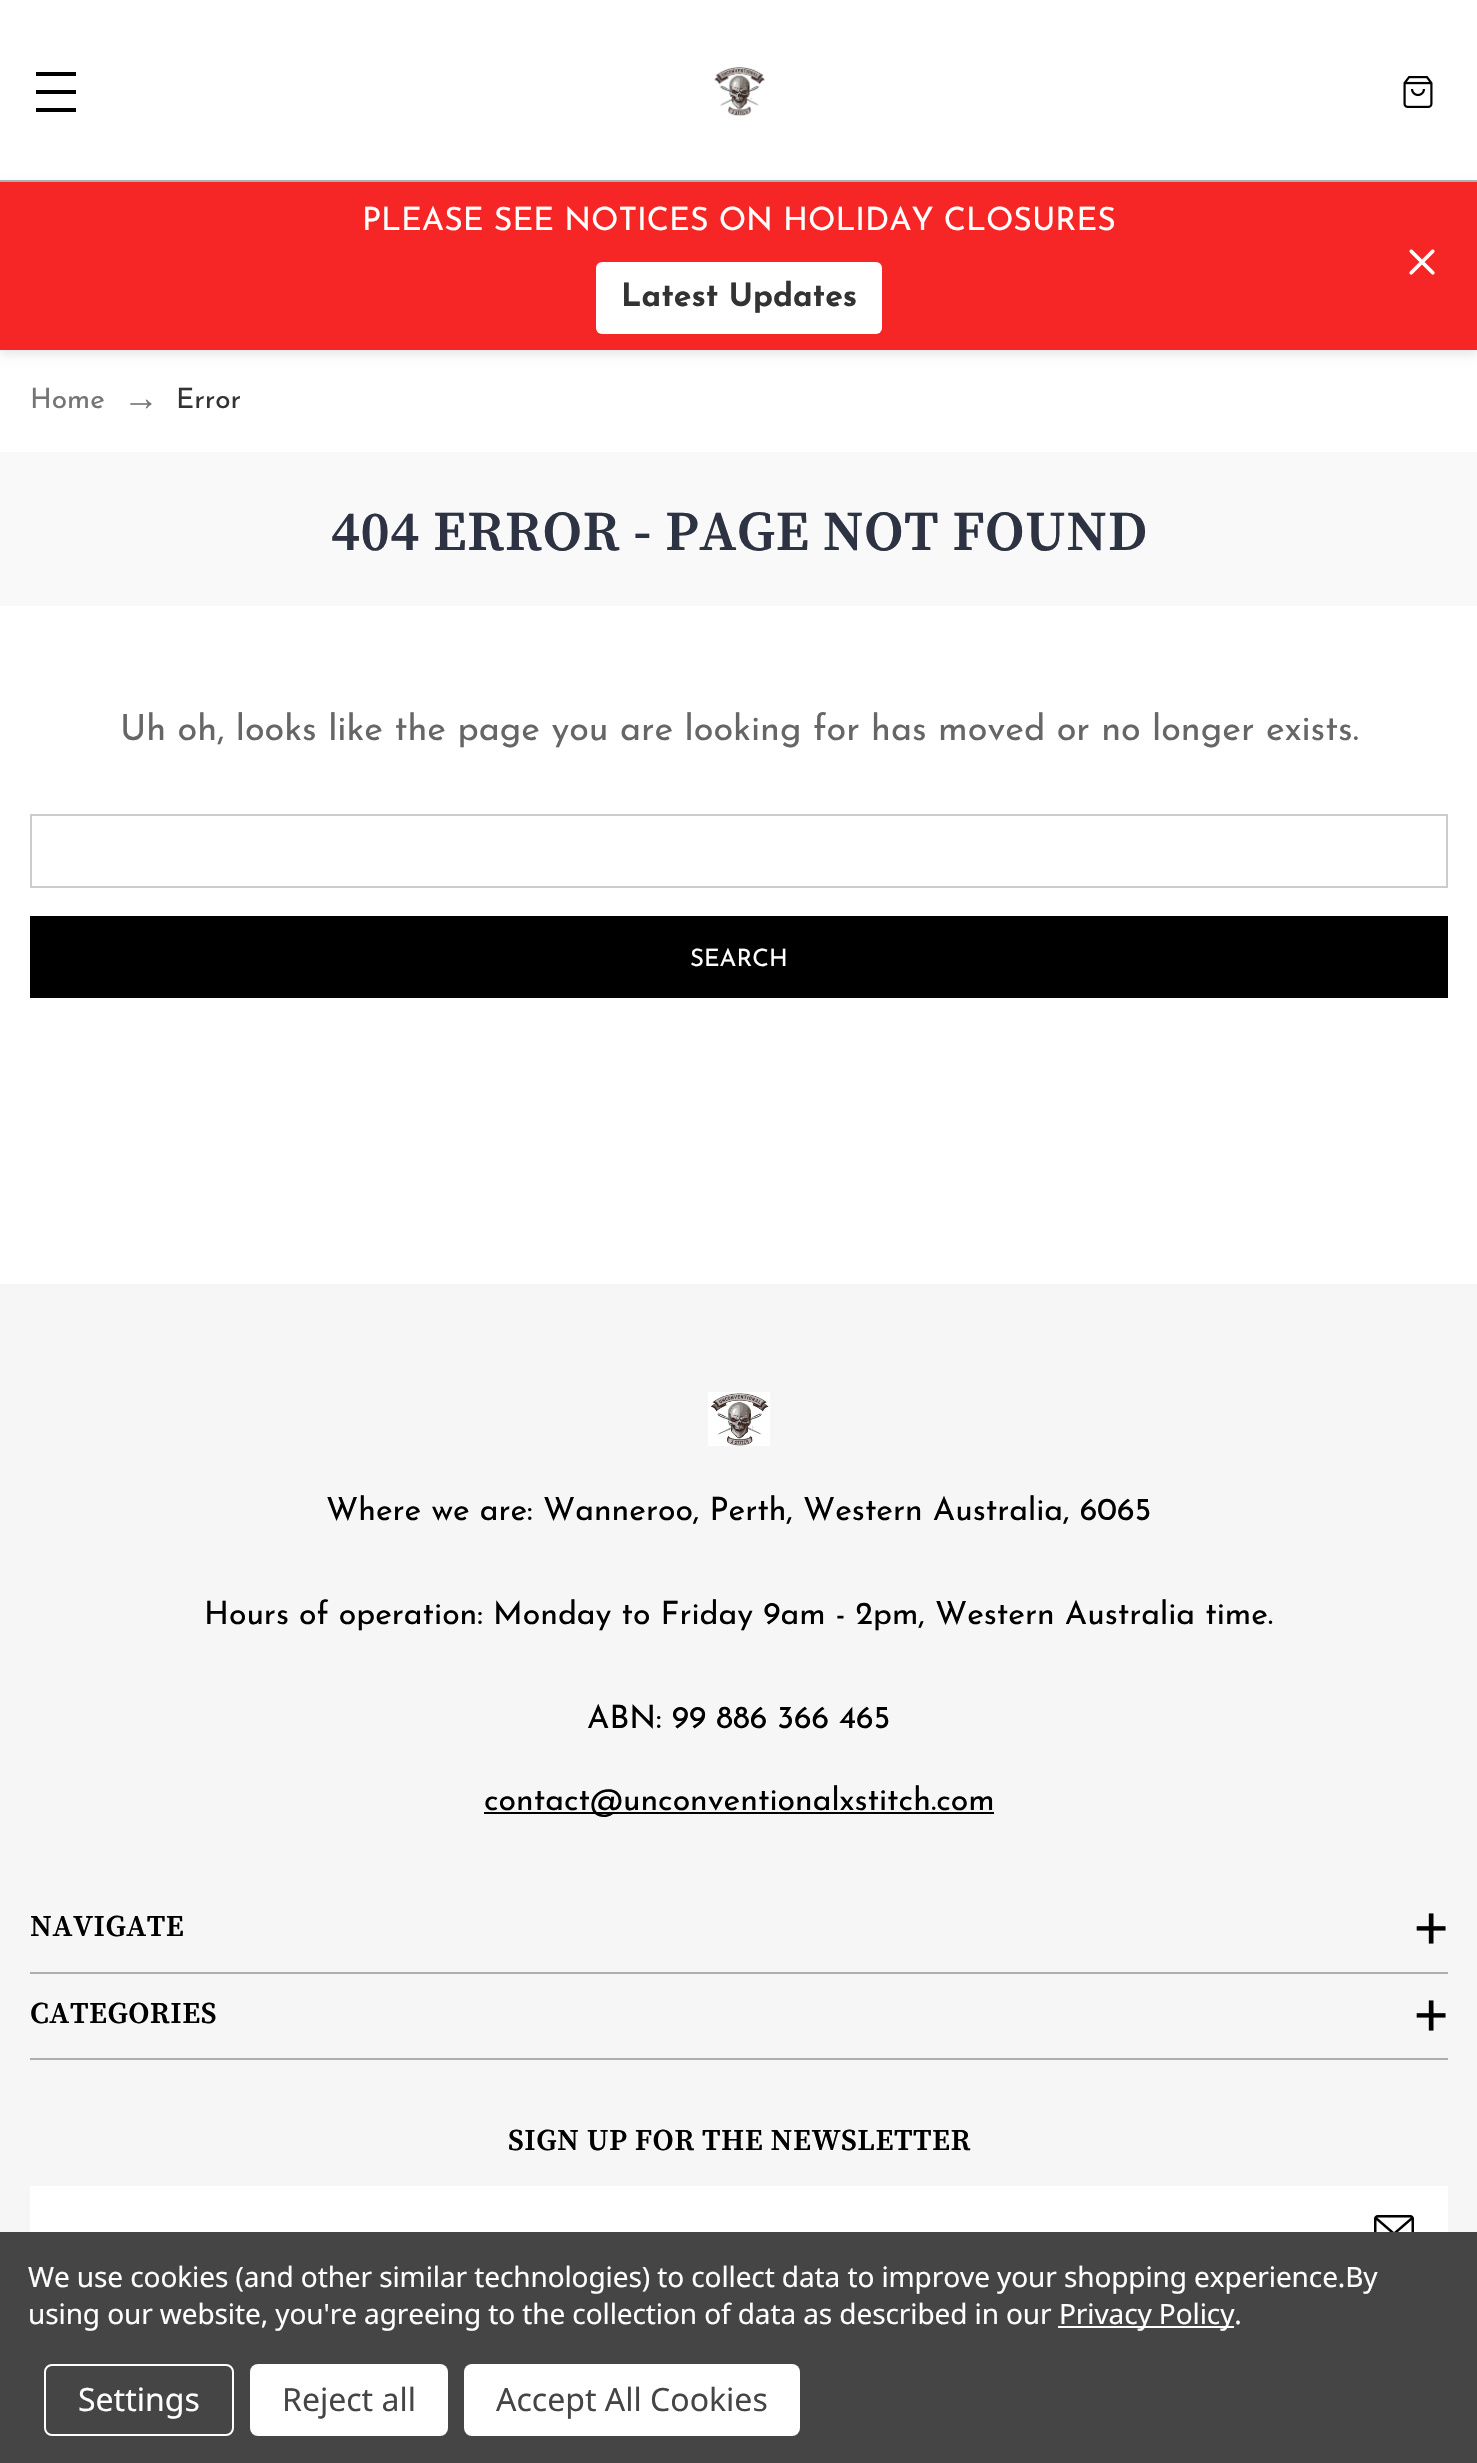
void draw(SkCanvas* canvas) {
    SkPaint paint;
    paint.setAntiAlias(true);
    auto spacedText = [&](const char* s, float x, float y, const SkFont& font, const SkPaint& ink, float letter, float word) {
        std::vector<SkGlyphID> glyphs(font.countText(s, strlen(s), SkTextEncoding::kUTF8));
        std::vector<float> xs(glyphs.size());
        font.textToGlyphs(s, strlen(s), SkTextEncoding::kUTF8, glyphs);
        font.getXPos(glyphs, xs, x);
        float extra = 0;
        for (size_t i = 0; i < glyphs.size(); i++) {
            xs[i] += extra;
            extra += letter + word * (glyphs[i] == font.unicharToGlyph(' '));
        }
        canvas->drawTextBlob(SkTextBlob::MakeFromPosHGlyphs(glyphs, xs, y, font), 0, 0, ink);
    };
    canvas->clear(0xFFFFFFFF);
    paint.setColor(0x1A000000);
    paint.setMaskFilter(SkMaskFilter::MakeBlur(kNormal_SkBlurStyle, 5));
    canvas->drawRect(SkRect::MakeXYWH(0, 186, 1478, 168), paint);
    paint.setMaskFilter(nullptr);
    paint.setColor(0xFFAEAEAE);
    canvas->drawRect(SkRect::MakeXYWH(0, 180, 1477, 2), paint);
    paint.setColor(0xFF000000);
    canvas->drawRect(SkRect::MakeXYWH(36, 90, 40, 4), paint);
    canvas->drawRect(SkRect::MakeXYWH(36, 72, 40, 4), paint);
    canvas->drawRect(SkRect::MakeXYWH(36, 108, 40, 4), paint);
    canvas->drawImageRect(SkImages::DeferredFromEncodedData(SkData::MakeFromFileName("img1.png")), SkRect::MakeXYWH(714, 67, 51, 49), SkSamplingOptions());
    canvas->drawImageRect(SkImages::DeferredFromEncodedData(SkData::MakeFromFileName("img2.png")), SkRect::MakeXYWH(1403, 76, 30, 32), SkSamplingOptions());
    paint.setColor(0xFFF72626);
    canvas->drawRect(SkRect::MakeXYWH(0, 182, 1477, 168), paint);
    SkFont font1(fontMgr->matchFamilyStyle("Josefin Sans", SkFontStyle::Normal()), 32);
    font1.setSubpixel(true);
    paint.setColor(0xFFFFFFFF);
    canvas->drawString("PLEASE SEE NOTICES ON HOLIDAY CLOSURES", 362, 230, font1, paint);
    canvas->drawImageRect(SkImages::DeferredFromEncodedData(SkData::MakeFromFileName("img3.png")), SkRect::MakeXYWH(1409, 249, 26, 26), SkSamplingOptions());
    canvas->drawRoundRect(SkRect::MakeXYWH(596, 262, 286, 72), 6, 6, paint);
    SkFont font2(fontMgr->matchFamilyStyle("Josefin Sans", SkFontStyle::Bold()), 32);
    font2.setSubpixel(true);
    paint.setColor(0xFF333333);
    canvas->drawString("Latest Updates", 621, 306, font2, paint);
    SkFont font3(fontMgr->matchFamilyStyle("Josefin Sans", SkFontStyle::Normal()), 28);
    font3.setSubpixel(true);
    paint.setColor(0xFF757575);
    canvas->drawString("Home", 30, 408, font3, paint);
    SkFont font4(fontMgr->matchFamilyStyle("Liberation Sans", SkFontStyle::Normal()), 36);
    font4.setSubpixel(true);
    canvas->drawString("→", 123, 410, font4, paint);
    paint.setColor(0xFF333333);
    canvas->drawString("Error", 176, 408, font3, paint);
    paint.setColor(0xFFF9F9F9);
    canvas->drawRect(SkRect::MakeXYWH(0, 452, 1477, 154), paint);
    SkFont font5(fontMgr->matchFamilyStyle("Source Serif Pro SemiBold", SkFontStyle(600, SkFontStyle::kNormal_Width, SkFontStyle::kUpright_Slant)), 56);
    font5.setSubpixel(true);
    paint.setColor(0xFF2E3344);
    spacedText("404 ERROR - PAGE NOT FOUND", 331, 550, font5, paint, 0.5f, 0);
    SkFont font6(fontMgr->matchFamilyStyle("Josefin Sans", SkFontStyle::Normal()), 36);
    font6.setSubpixel(true);
    paint.setColor(0xFF666666);
    canvas->drawString("Uh oh, looks like the page you are looking for has moved or no longer exists.", 120, 740, font6, paint);
    paint.setStyle(SkPaint::kStroke_Style);
    paint.setStrokeWidth(2);
    paint.setColor(0xFFCCCCCC);
    canvas->drawRect(SkRect::MakeXYWH(31, 815, 1416, 72), paint);
    paint.setStyle(SkPaint::kFill_Style);
    paint.setColor(0xFF000000);
    canvas->drawRect(SkRect::MakeXYWH(30, 916, 1418, 82), paint);
    SkFont font7(fontMgr->matchFamilyStyle("Josefin Sans", SkFontStyle::Normal()), 24);
    font7.setSubpixel(true);
    paint.setColor(0xFFFFFFFF);
    canvas->drawString("SEARCH", 690, 966, font7, paint);
    paint.setColor(0xFFF6F6F6);
    canvas->drawRect(SkRect::MakeXYWH(0, 1284, 1477, 948), paint);
    canvas->drawImageRect(SkImages::DeferredFromEncodedData(SkData::MakeFromFileName("img4.png")), SkRect::MakeXYWH(708, 1392, 62, 54), SkSamplingOptions());
    paint.setColor(0xFF000000);
    canvas->drawString("Where we are: Wanneroo, Perth, Western Australia, 6065", 326, 1520, font1, paint);
    canvas->drawString("Hours of operation: Monday to Friday 9am - 2pm, Western Australia time.", 204, 1624, font1, paint);
    canvas->drawString("ABN: 99 886 366 465", 587, 1728, font1, paint);
    canvas->drawRect(SkRect::MakeXYWH(484, 1812, 510, 2), paint);
    canvas->drawString("contact@unconventionalxstitch.com", 484, 1810, font1, paint);
    paint.setColor(0xFFAEAEAE);
    canvas->drawRect(SkRect::MakeXYWH(30, 1972, 1418, 2), paint);
    SkFont font8(fontMgr->matchFamilyStyle("Source Serif Pro SemiBold", SkFontStyle(600, SkFontStyle::kNormal_Width, SkFontStyle::kUpright_Slant)), 30);
    font8.setSubpixel(true);
    paint.setColor(0xFF000000);
    spacedText("NAVIGATE", 30, 1936, font8, paint, 0.5f, 0);
    SkFont font9(fontMgr->matchFamilyStyle("Source Serif Pro SemiBold", SkFontStyle(600, SkFontStyle::kNormal_Width, SkFontStyle::kUpright_Slant)), 60);
    font9.setSubpixel(true);
    spacedText("+", 1415, 1948, font9, paint, 0.5f, 0);
    paint.setColor(0xFFAEAEAE);
    canvas->drawRect(SkRect::MakeXYWH(30, 2058, 1418, 2), paint);
    paint.setColor(0xFF000000);
    spacedText("CATEGORIES", 30, 2023, font8, paint, 0.5f, 0);
    spacedText("+", 1415, 2035, font9, paint, 0.5f, 0);
    spacedText("SIGN UP FOR THE NEWSLETTER", 508, 2150, font8, paint, 0.5f, 0);
    paint.setColor(0xFFFFFFFF);
    canvas->drawRect(SkRect::MakeXYWH(30, 2186, 1418, 46), paint);
    canvas->drawImageRect(SkImages::DeferredFromEncodedData(SkData::MakeFromFileName("img5.png")), SkRect::MakeXYWH(1374, 2215, 40, 17), SkSamplingOptions());
    paint.setColor(0xFF454545);
    canvas->drawRect(SkRect::MakeXYWH(0, 2232, 1477, 231), paint);
    SkFont font10(fontMgr->matchFamilyStyle("Noto Sans", SkFontStyle::Normal()), 28);
    font10.setSubpixel(true);
    paint.setColor(0xFFFFFFFF);
    spacedText("We use cookies (and other similar technologies) to collect data to improve your shopping experience.By", 28, 2287, font10, paint, -0.1f, 0);
    spacedText("using our website, you're agreeing to the collection of data as described in our", 28, 2324, font10, paint, -0.1f, 0);
    canvas->drawRect(SkRect::MakeXYWH(1058, 2326, 176, 2), paint);
    spacedText("Privacy Policy.", 1059, 2324, font10, paint, -0.1f, 0);
    paint.setStyle(SkPaint::kStroke_Style);
    canvas->drawRoundRect(SkRect::MakeXYWH(45, 2365, 188, 70), 7, 7, paint);
    SkFont font11(fontMgr->matchFamilyStyle("Noto Sans", SkFontStyle::Normal()), 32);
    font11.setSubpixel(true);
    paint.setStyle(SkPaint::kFill_Style);
    canvas->drawString("Settings", 78, 2411, font11, paint);
    canvas->drawRoundRect(SkRect::MakeXYWH(250, 2364, 198, 72), 8, 8, paint);
    paint.setColor(0xFF454545);
    canvas->drawString("Reject all", 282, 2411, font11, paint);
    paint.setColor(0xFFFFFFFF);
    canvas->drawRoundRect(SkRect::MakeXYWH(464, 2364, 336, 72), 8, 8, paint);
    paint.setColor(0xFF454545);
    canvas->drawString("Accept All Cookies", 496, 2411, font11, paint);
}
